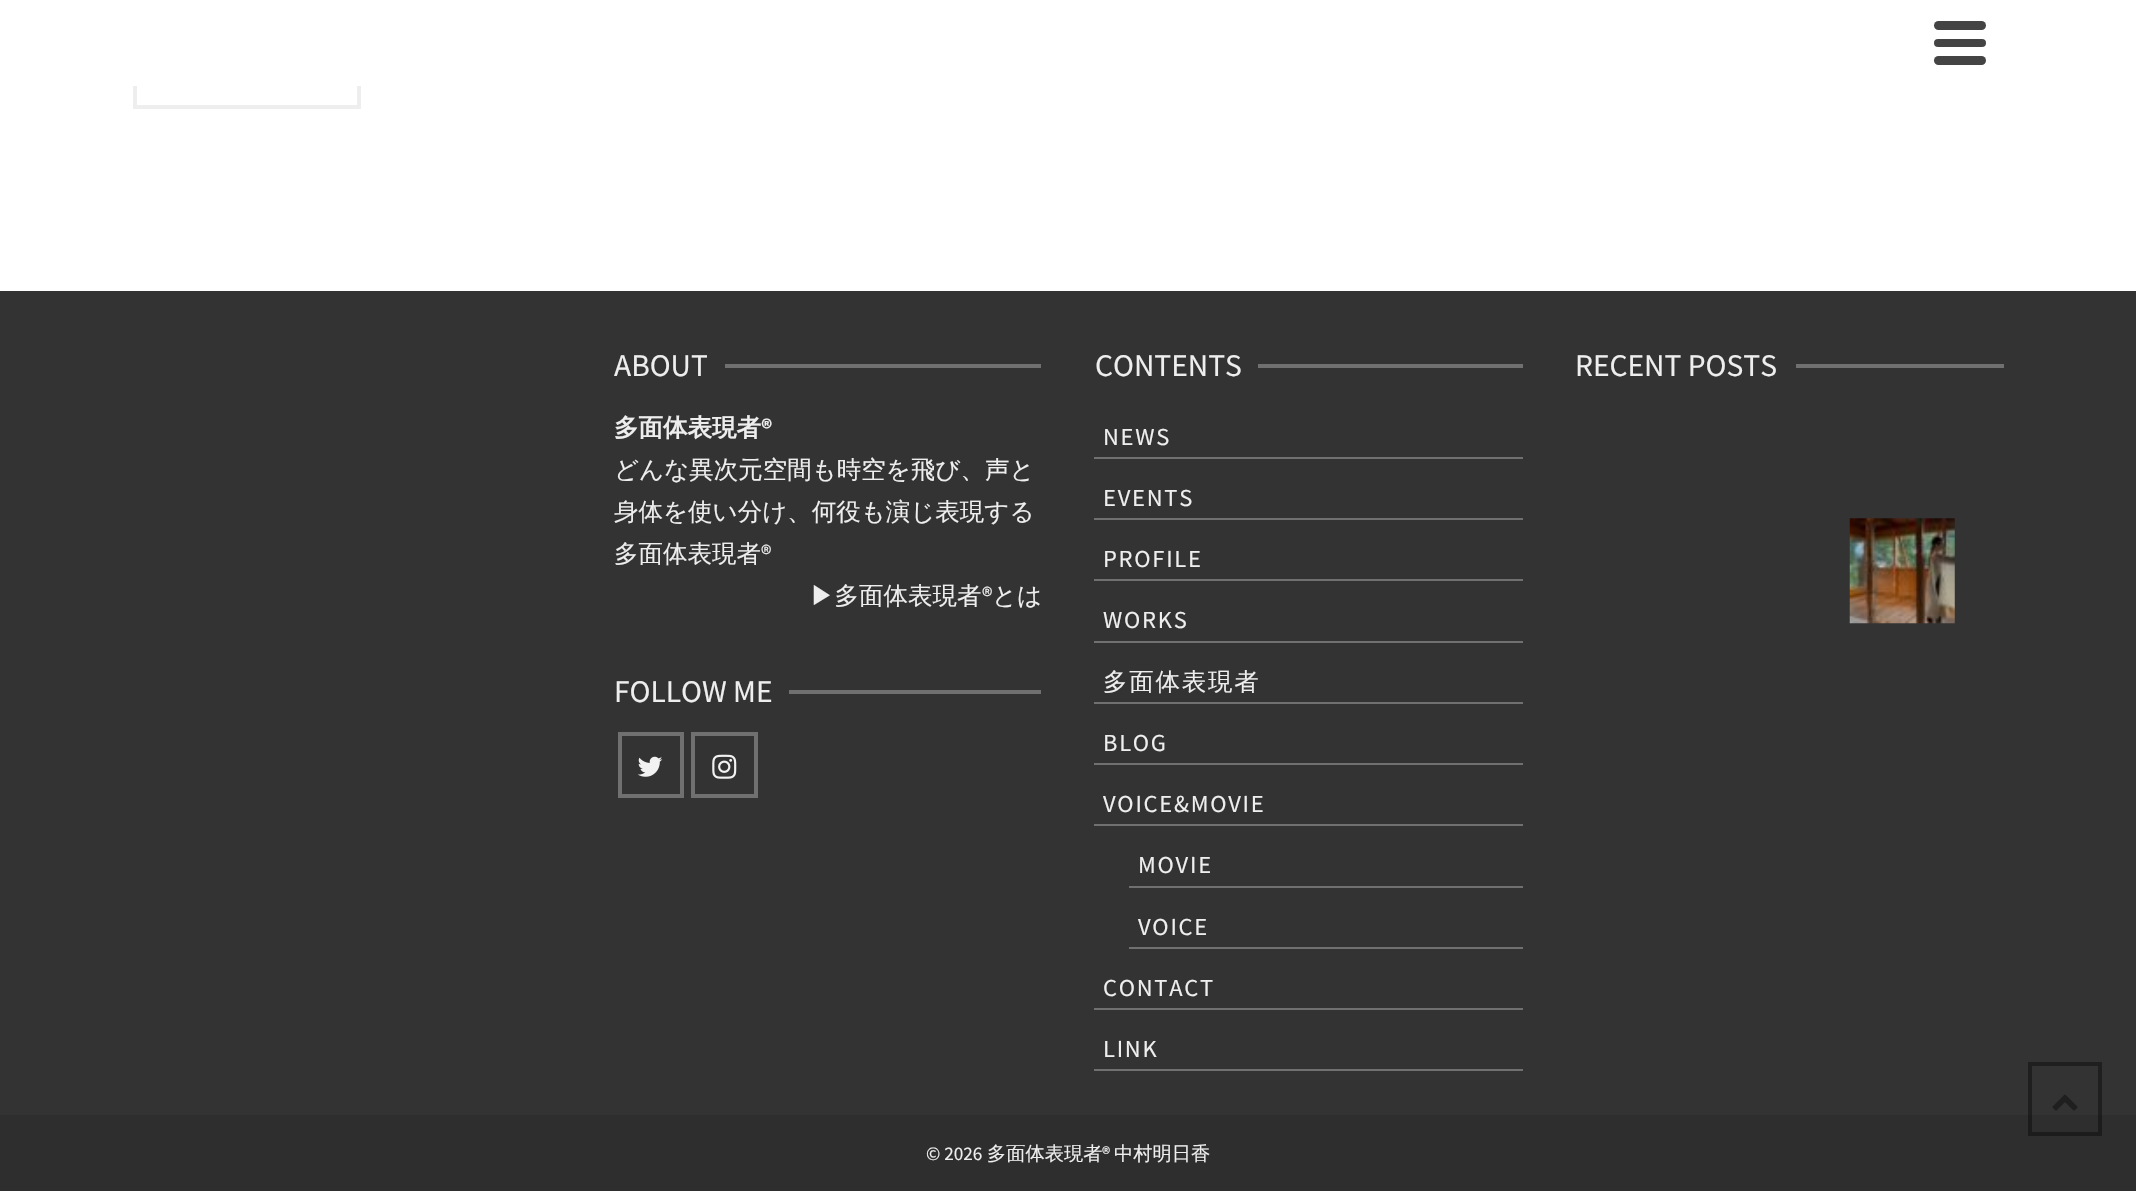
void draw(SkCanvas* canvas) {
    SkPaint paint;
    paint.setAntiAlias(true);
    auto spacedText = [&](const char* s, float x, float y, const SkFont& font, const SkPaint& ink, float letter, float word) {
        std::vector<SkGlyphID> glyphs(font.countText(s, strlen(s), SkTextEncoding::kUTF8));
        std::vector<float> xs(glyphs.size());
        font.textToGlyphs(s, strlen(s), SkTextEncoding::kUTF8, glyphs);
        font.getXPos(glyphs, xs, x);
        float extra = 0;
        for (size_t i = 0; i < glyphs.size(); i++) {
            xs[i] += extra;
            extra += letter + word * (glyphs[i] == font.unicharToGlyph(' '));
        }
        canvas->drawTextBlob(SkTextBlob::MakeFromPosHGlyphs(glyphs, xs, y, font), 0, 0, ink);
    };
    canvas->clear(0xFFFFFFFF);
    paint.setStyle(SkPaint::kStroke_Style);
    paint.setStrokeWidth(4);
    paint.setColor(0xFFEEEEEE);
    canvas->drawRect(SkRect::MakeXYWH(135, 51, 224, 56), paint);
    paint.setStyle(SkPaint::kFill_Style);
    paint.setColor(0xFFFFFFFF);
    canvas->drawRect(SkRect::MakeXYWH(133, 49, 228, 37), paint);
    paint.setColor(0xFF444444);
    canvas->drawRoundRect(SkRect::MakeXYWH(1934, 21, 52, 9), 4.5f, 4.5f, paint);
    canvas->drawRoundRect(SkRect::MakeXYWH(1934, 39, 52, 8), 4, 4, paint);
    canvas->drawRoundRect(SkRect::MakeXYWH(1934, 56, 52, 9), 4.5f, 4.5f, paint);
    paint.setColor(0xFF333333);
    canvas->drawRect(SkRect::MakeXYWH(0, 291, 2136, 824), paint);
    SkFont font1(fontMgr->matchFamilyStyle("Source Sans Pro", SkFontStyle::Normal()), 31.5f);
    font1.setSubpixel(true);
    paint.setColor(0xFFEEEEEE);
    canvas->drawString("ABOUT", 614, 376, font1, paint);
    paint.setColor(0xFF707070);
    canvas->drawRect(SkRect::MakeXYWH(725, 364, 316, 4), paint);
    SkFont font2(fontMgr->matchFamilyStyle("WenQuanYi Zen Hei", SkFontStyle::Bold()), 24.5f);
    font2.setSubpixel(true);
    paint.setColor(0xFFEEEEEE);
    canvas->drawString("多面体表現者", 614, 436, font2, paint);
    SkFont font3(fontMgr->matchFamilyStyle("Source Sans Pro", SkFontStyle::Bold()), 24.5f);
    font3.setSubpixel(true);
    canvas->drawString("®", 761, 436, font3, paint);
    SkFont font4(fontMgr->matchFamilyStyle("WenQuanYi Zen Hei", SkFontStyle(500, SkFontStyle::kNormal_Width, SkFontStyle::kUpright_Slant)), 24.5f);
    font4.setSubpixel(true);
    canvas->drawString("どんな異次元空間も時空を飛び、声と", 614, 478, font4, paint);
    canvas->drawString("身体を使い分け、何役も演じ表現する", 614, 520, font4, paint);
    canvas->drawString("多面体表現者", 614, 562, font4, paint);
    SkFont font5(fontMgr->matchFamilyStyle("Source Sans Pro", SkFontStyle::Normal()), 24.5f);
    font5.setSubpixel(true);
    canvas->drawString("®", 761, 562, font5, paint);
    canvas->drawString("▶多面体表現者", 810, 604, font4, paint);
    canvas->drawString("®", 982, 604, font5, paint);
    canvas->drawString("とは", 992, 604, font4, paint);
    canvas->drawString("FOLLOW ME", 614, 702, font1, paint);
    paint.setColor(0xFF707070);
    canvas->drawRect(SkRect::MakeXYWH(789, 690, 252, 4), paint);
    paint.setStyle(SkPaint::kStroke_Style);
    canvas->drawRect(SkRect::MakeXYWH(620, 734, 62, 62), paint);
    canvas->drawImageRect(SkImages::DeferredFromEncodedData(SkData::MakeFromFileName("img1.png")), SkRect::MakeXYWH(637, 756, 26, 21), SkSamplingOptions());
    canvas->drawRect(SkRect::MakeXYWH(693, 734, 63, 62), paint);
    canvas->drawImageRect(SkImages::DeferredFromEncodedData(SkData::MakeFromFileName("img2.png")), SkRect::MakeXYWH(712, 754, 25, 25), SkSamplingOptions());
    paint.setStyle(SkPaint::kFill_Style);
    paint.setColor(0xFFEEEEEE);
    canvas->drawString("CONTENTS", 1095, 376, font1, paint);
    paint.setColor(0xFF707070);
    canvas->drawRect(SkRect::MakeXYWH(1258, 364, 265, 4), paint);
    canvas->drawRect(SkRect::MakeXYWH(1094, 457, 429, 2), paint);
    paint.setColor(0xFFEEEEEE);
    spacedText("NEWS", 1103, 445, font5, paint, 1.75f, 0);
    paint.setColor(0xFF707070);
    canvas->drawRect(SkRect::MakeXYWH(1094, 518, 429, 2), paint);
    paint.setColor(0xFFEEEEEE);
    spacedText("EVENTS", 1103, 506, font5, paint, 1.75f, 0);
    paint.setColor(0xFF707070);
    canvas->drawRect(SkRect::MakeXYWH(1094, 579, 429, 2), paint);
    paint.setColor(0xFFEEEEEE);
    spacedText("PROFILE", 1103, 567, font5, paint, 1.75f, 0);
    paint.setColor(0xFF707070);
    canvas->drawRect(SkRect::MakeXYWH(1094, 641, 429, 2), paint);
    paint.setColor(0xFFEEEEEE);
    spacedText("WORKS", 1103, 628, font5, paint, 1.75f, 0);
    paint.setColor(0xFF707070);
    canvas->drawRect(SkRect::MakeXYWH(1094, 702, 429, 2), paint);
    paint.setColor(0xFFEEEEEE);
    spacedText("多面体表現者", 1103, 690, font4, paint, 1.75f, 0);
    paint.setColor(0xFF707070);
    canvas->drawRect(SkRect::MakeXYWH(1094, 763, 429, 2), paint);
    paint.setColor(0xFFEEEEEE);
    spacedText("BLOG", 1103, 751, font5, paint, 1.75f, 0);
    paint.setColor(0xFF707070);
    canvas->drawRect(SkRect::MakeXYWH(1094, 824, 429, 2), paint);
    paint.setColor(0xFFEEEEEE);
    spacedText("VOICE&MOVIE", 1103, 812, font5, paint, 1.75f, 0);
    paint.setColor(0xFF707070);
    canvas->drawRect(SkRect::MakeXYWH(1129, 886, 394, 2), paint);
    paint.setColor(0xFFEEEEEE);
    spacedText("MOVIE", 1138, 873, font5, paint, 1.75f, 0);
    paint.setColor(0xFF707070);
    canvas->drawRect(SkRect::MakeXYWH(1129, 947, 394, 2), paint);
    paint.setColor(0xFFEEEEEE);
    spacedText("VOICE", 1138, 935, font5, paint, 1.75f, 0);
    paint.setColor(0xFF707070);
    canvas->drawRect(SkRect::MakeXYWH(1094, 1008, 429, 2), paint);
    paint.setColor(0xFFEEEEEE);
    spacedText("CONTACT", 1103, 996, font5, paint, 1.75f, 0);
    paint.setColor(0xFF707070);
    canvas->drawRect(SkRect::MakeXYWH(1094, 1069, 429, 2), paint);
    paint.setColor(0xFFEEEEEE);
    spacedText("LINK", 1103, 1057, font5, paint, 1.75f, 0);
    canvas->drawString("RECENT POSTS", 1575, 376, font1, paint);
    paint.setColor(0xFF707070);
    canvas->drawRect(SkRect::MakeXYWH(1796, 364, 208, 4), paint);
    canvas->drawImageRect(SkImages::DeferredFromEncodedData(SkData::MakeFromFileName("img3.png")), SkRect::MakeXYWH(1849, 518, 106, 106), SkSamplingOptions());
    paint.setColor(0xFF2E2E2E);
    canvas->drawRect(SkRect::MakeXYWH(0, 1115, 2136, 76), paint);
    SkFont font6(fontMgr->matchFamilyStyle("Source Sans Pro", SkFontStyle::Normal()), 19.25f);
    font6.setSubpixel(true);
    paint.setColor(0xFFEEEEEE);
    canvas->drawString("© 2026", 926, 1160, font6, paint);
    SkFont font7(fontMgr->matchFamilyStyle("WenQuanYi Zen Hei", SkFontStyle(500, SkFontStyle::kNormal_Width, SkFontStyle::kUpright_Slant)), 19.25f);
    font7.setSubpixel(true);
    canvas->drawString("多面体表現者", 987, 1160, font7, paint);
    canvas->drawString("®", 1102, 1160, font6, paint);
    canvas->drawString("中村明日香", 1114, 1160, font7, paint);
    paint.setStyle(SkPaint::kStroke_Style);
    paint.setColor(0x66000000);
    canvas->drawRect(SkRect::MakeXYWH(2030, 1064, 70, 70), paint);
    canvas->drawImageRect(SkImages::DeferredFromEncodedData(SkData::MakeFromFileName("img4.png")), SkRect::MakeXYWH(2052, 1094, 26, 17), SkSamplingOptions());
}
